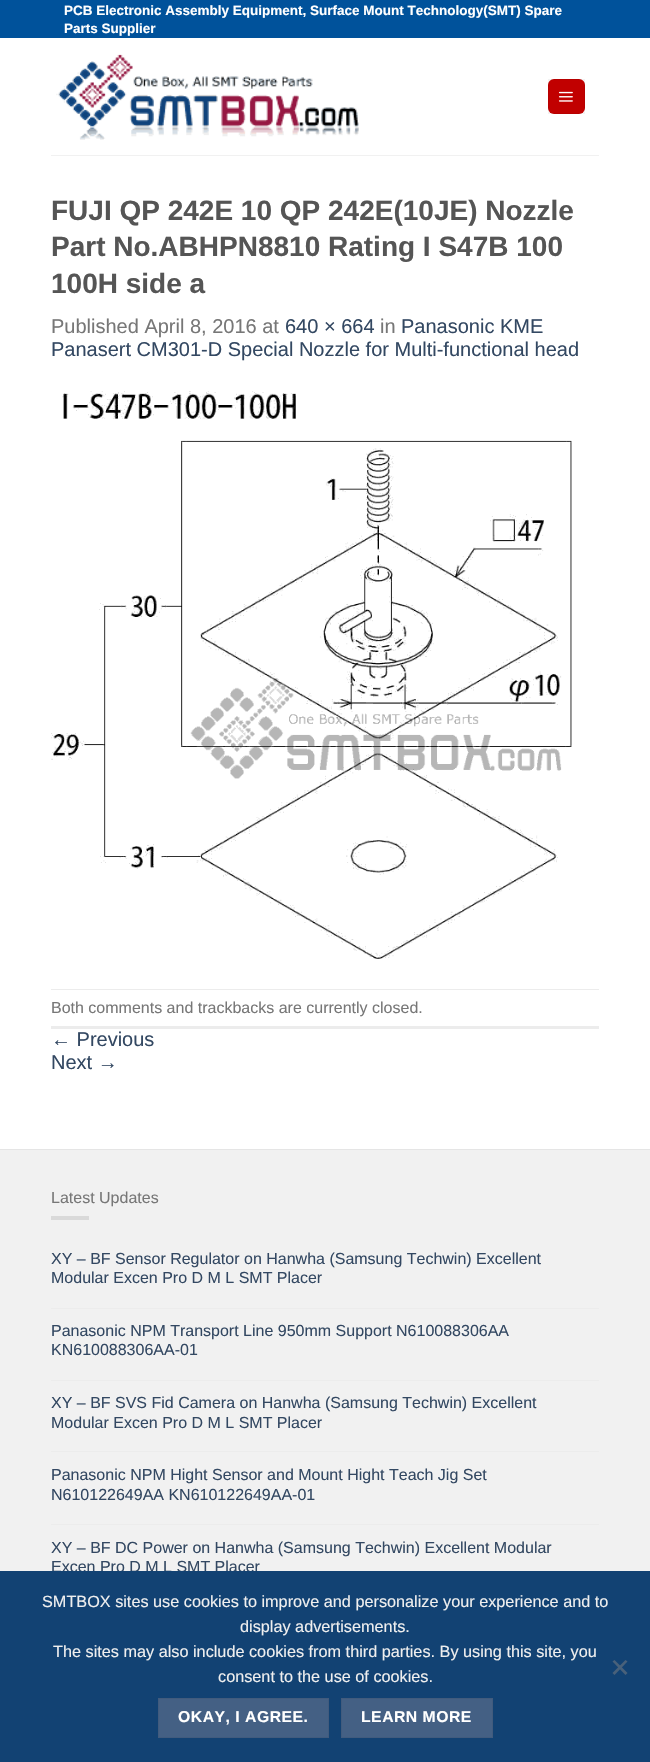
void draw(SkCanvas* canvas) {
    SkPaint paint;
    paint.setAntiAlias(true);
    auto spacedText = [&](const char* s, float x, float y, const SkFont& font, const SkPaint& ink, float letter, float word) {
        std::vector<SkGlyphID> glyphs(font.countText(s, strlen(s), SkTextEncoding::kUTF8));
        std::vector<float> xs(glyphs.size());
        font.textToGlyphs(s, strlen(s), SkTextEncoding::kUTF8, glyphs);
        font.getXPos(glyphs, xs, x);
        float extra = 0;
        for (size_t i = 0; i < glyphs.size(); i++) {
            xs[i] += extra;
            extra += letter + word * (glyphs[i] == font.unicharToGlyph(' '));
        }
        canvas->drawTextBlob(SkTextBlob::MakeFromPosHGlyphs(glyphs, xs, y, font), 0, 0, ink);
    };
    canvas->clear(0xFFFFFFFF);
    paint.setColor(0xFF00529B);
    canvas->drawRect(SkRect::MakeXYWH(0, 0, 650, 38), paint);
    SkFont font1(fontMgr->matchFamilyStyle("Liberation Sans", SkFontStyle::Bold()), 13.5f);
    font1.setSubpixel(true);
    paint.setColor(0xFFFFFFFF);
    canvas->drawString("PCB Electronic Assembly Equipment, Surface Mount Technology(SMT) Spare", 64, 15, font1, paint);
    canvas->drawString("Parts Supplier", 64, 33, font1, paint);
    canvas->drawImageRect(SkImages::DeferredFromEncodedData(SkData::MakeFromFileName("img1.png")), SkRect::MakeXYWH(56, 54, 303, 86), SkSamplingOptions());
    paint.setColor(0xFFC10000);
    canvas->drawRoundRect(SkRect::MakeXYWH(548, 79, 37, 35), 6, 6, paint);
    paint.setStyle(SkPaint::kStroke_Style);
    paint.setStrokeWidth(1);
    paint.setColor(0x0D000000);
    canvas->drawRect(SkRect::MakeXYWH(548.5f, 79.5f, 36, 34), paint);
    canvas->drawImageRect(SkImages::DeferredFromEncodedData(SkData::MakeFromFileName("img2.png")), SkRect::MakeXYWH(558, 91, 15, 11), SkSamplingOptions());
    paint.setStyle(SkPaint::kFill_Style);
    paint.setColor(0xFFF1F1F1);
    canvas->drawRect(SkRect::MakeXYWH(51, 155, 548, 1), paint);
    SkFont font2(fontMgr->matchFamilyStyle("Liberation Sans", SkFontStyle::Bold()), 28);
    font2.setSubpixel(true);
    paint.setColor(0xFF555555);
    canvas->drawString("FUJI QP 242E 10 QP 242E(10JE) Nozzle", 51, 220, font2, paint);
    canvas->drawString("Part No.ABHPN8810 Rating I S47B 100", 51, 256, font2, paint);
    canvas->drawString("100H side a", 51, 293, font2, paint);
    SkFont font3(fontMgr->matchFamilyStyle("Liberation Sans", SkFontStyle::Normal()), 20);
    font3.setSubpixel(true);
    paint.setColor(0xFF777777);
    canvas->drawString("Published April 8, 2016 at", 51, 333, font3, paint);
    paint.setColor(0xFF334862);
    canvas->drawString("640 × 664", 285, 333, font3, paint);
    paint.setColor(0xFF777777);
    canvas->drawString("in", 380, 333, font3, paint);
    paint.setColor(0xFF334862);
    canvas->drawString("Panasonic KME", 401, 333, font3, paint);
    canvas->drawString("Panasert CM301-D Special Nozzle for Multi-functional head", 51, 356, font3, paint);
    canvas->drawImageRect(SkImages::DeferredFromEncodedData(SkData::MakeFromFileName("img3.png")), SkRect::MakeXYWH(51, 391, 521, 568), SkSamplingOptions());
    paint.setColor(0xFFECECEC);
    canvas->drawRect(SkRect::MakeXYWH(51, 989, 548, 1), paint);
    canvas->drawRect(SkRect::MakeXYWH(51, 1026, 548, 3), paint);
    SkFont font4(fontMgr->matchFamilyStyle("Liberation Sans", SkFontStyle::Normal()), 16);
    font4.setSubpixel(true);
    paint.setColor(0xFF777777);
    canvas->drawString("Both comments and trackbacks are currently closed.", 51, 1013, font4, paint);
    paint.setColor(0xFF334862);
    canvas->drawString("← Previous", 51, 1046, font3, paint);
    canvas->drawString("Next →", 51, 1069, font3, paint);
    paint.setColor(0xFFF1F1F1);
    canvas->drawRect(SkRect::MakeXYWH(0, 1150, 650, 421), paint);
    paint.setColor(0xFFE5E5E5);
    canvas->drawRect(SkRect::MakeXYWH(0, 1149, 650, 1), paint);
    paint.setColor(0xFF777777);
    canvas->drawString("Latest Updates", 51, 1203, font4, paint);
    paint.setColor(0xFFD9D9D9);
    canvas->drawRect(SkRect::MakeXYWH(51, 1216, 38, 4), paint);
    paint.setColor(0xFF334862);
    canvas->drawString("XY – BF Sensor Regulator on Hanwha (Samsung Techwin) Excellent", 51, 1264, font4, paint);
    canvas->drawString("Modular Excen Pro D M L SMT Placer", 51, 1283, font4, paint);
    paint.setColor(0xFFECECEC);
    canvas->drawRect(SkRect::MakeXYWH(51, 1308, 548, 1), paint);
    paint.setColor(0xFF334862);
    canvas->drawString("Panasonic NPM Transport Line 950mm Support N610088306AA", 51, 1336, font4, paint);
    canvas->drawString("KN610088306AA-01", 51, 1355, font4, paint);
    paint.setColor(0xFFECECEC);
    canvas->drawRect(SkRect::MakeXYWH(51, 1380, 548, 1), paint);
    paint.setColor(0xFF334862);
    canvas->drawString("XY – BF SVS Fid Camera on Hanwha (Samsung Techwin) Excellent", 51, 1408, font4, paint);
    canvas->drawString("Modular Excen Pro D M L SMT Placer", 51, 1428, font4, paint);
    paint.setColor(0xFFECECEC);
    canvas->drawRect(SkRect::MakeXYWH(51, 1451, 548, 1), paint);
    paint.setColor(0xFF334862);
    canvas->drawString("Panasonic NPM Hight Sensor and Mount Hight Teach Jig Set", 51, 1480, font4, paint);
    canvas->drawString("N610122649AA KN610122649AA-01", 51, 1500, font4, paint);
    paint.setColor(0xFFECECEC);
    canvas->drawRect(SkRect::MakeXYWH(51, 1524, 548, 1), paint);
    paint.setColor(0xFF334862);
    canvas->drawString("XY – BF DC Power on Hanwha (Samsung Techwin) Excellent Modular", 51, 1553, font4, paint);
    canvas->drawString("Excen Pro D M L SMT Placer", 51, 1572, font4, paint);
    paint.setColor(0xFF124273);
    canvas->drawRect(SkRect::MakeXYWH(0, 1571, 650, 191), paint);
    SkFont font5(fontMgr->matchFamilyStyle("Liberation Sans", SkFontStyle::Normal()), 16.25f);
    font5.setSubpixel(true);
    paint.setColor(0xFFEFEFEF);
    canvas->drawString("SMTBOX sites use cookies to improve and personalize your experience and to", 42, 1607, font5, paint);
    canvas->drawString("display advertisements.", 240, 1632, font5, paint);
    canvas->drawString("The sites may also include cookies from third parties. By using this site, you", 53, 1657, font5, paint);
    canvas->drawString("consent to the use of cookies.", 218, 1682, font5, paint);
    paint.setColor(0xFF49617A);
    canvas->drawPath(SkPathBuilder().moveTo(625.5f, 1660).lineTo(627.5f, 1661.5f).lineTo(614.5f, 1675).lineTo(612.5f, 1673).close().detach(), paint);
    canvas->drawPath(SkPathBuilder().moveTo(612.5f, 1661.5f).lineTo(614.5f, 1660).lineTo(627.5f, 1673).lineTo(625.5f, 1675).close().detach(), paint);
    paint.setColor(0xFF446084);
    canvas->drawRect(SkRect::MakeXYWH(158.5f, 1698.5f, 170, 39), paint);
    paint.setStyle(SkPaint::kStroke_Style);
    paint.setColor(0xFF415B7D);
    canvas->drawRect(SkRect::MakeXYWH(158.5f, 1698.5f, 170, 39), paint);
    SkFont font6(fontMgr->matchFamilyStyle("Liberation Sans", SkFontStyle::Bold()), 15.75f);
    font6.setSubpixel(true);
    paint.setStyle(SkPaint::kFill_Style);
    paint.setColor(0xFFFFFFFF);
    spacedText("OKAY, I AGREE.", 178, 1722, font6, paint, 0.5f, 0);
    paint.setColor(0xFF446084);
    canvas->drawRect(SkRect::MakeXYWH(341.5f, 1698.5f, 151, 39), paint);
    paint.setStyle(SkPaint::kStroke_Style);
    paint.setColor(0xFF415B7D);
    canvas->drawRect(SkRect::MakeXYWH(341.5f, 1698.5f, 151, 39), paint);
    paint.setStyle(SkPaint::kFill_Style);
    paint.setColor(0xFFFFFFFF);
    spacedText("LEARN MORE", 361, 1722, font6, paint, 0.5f, 0);
}
